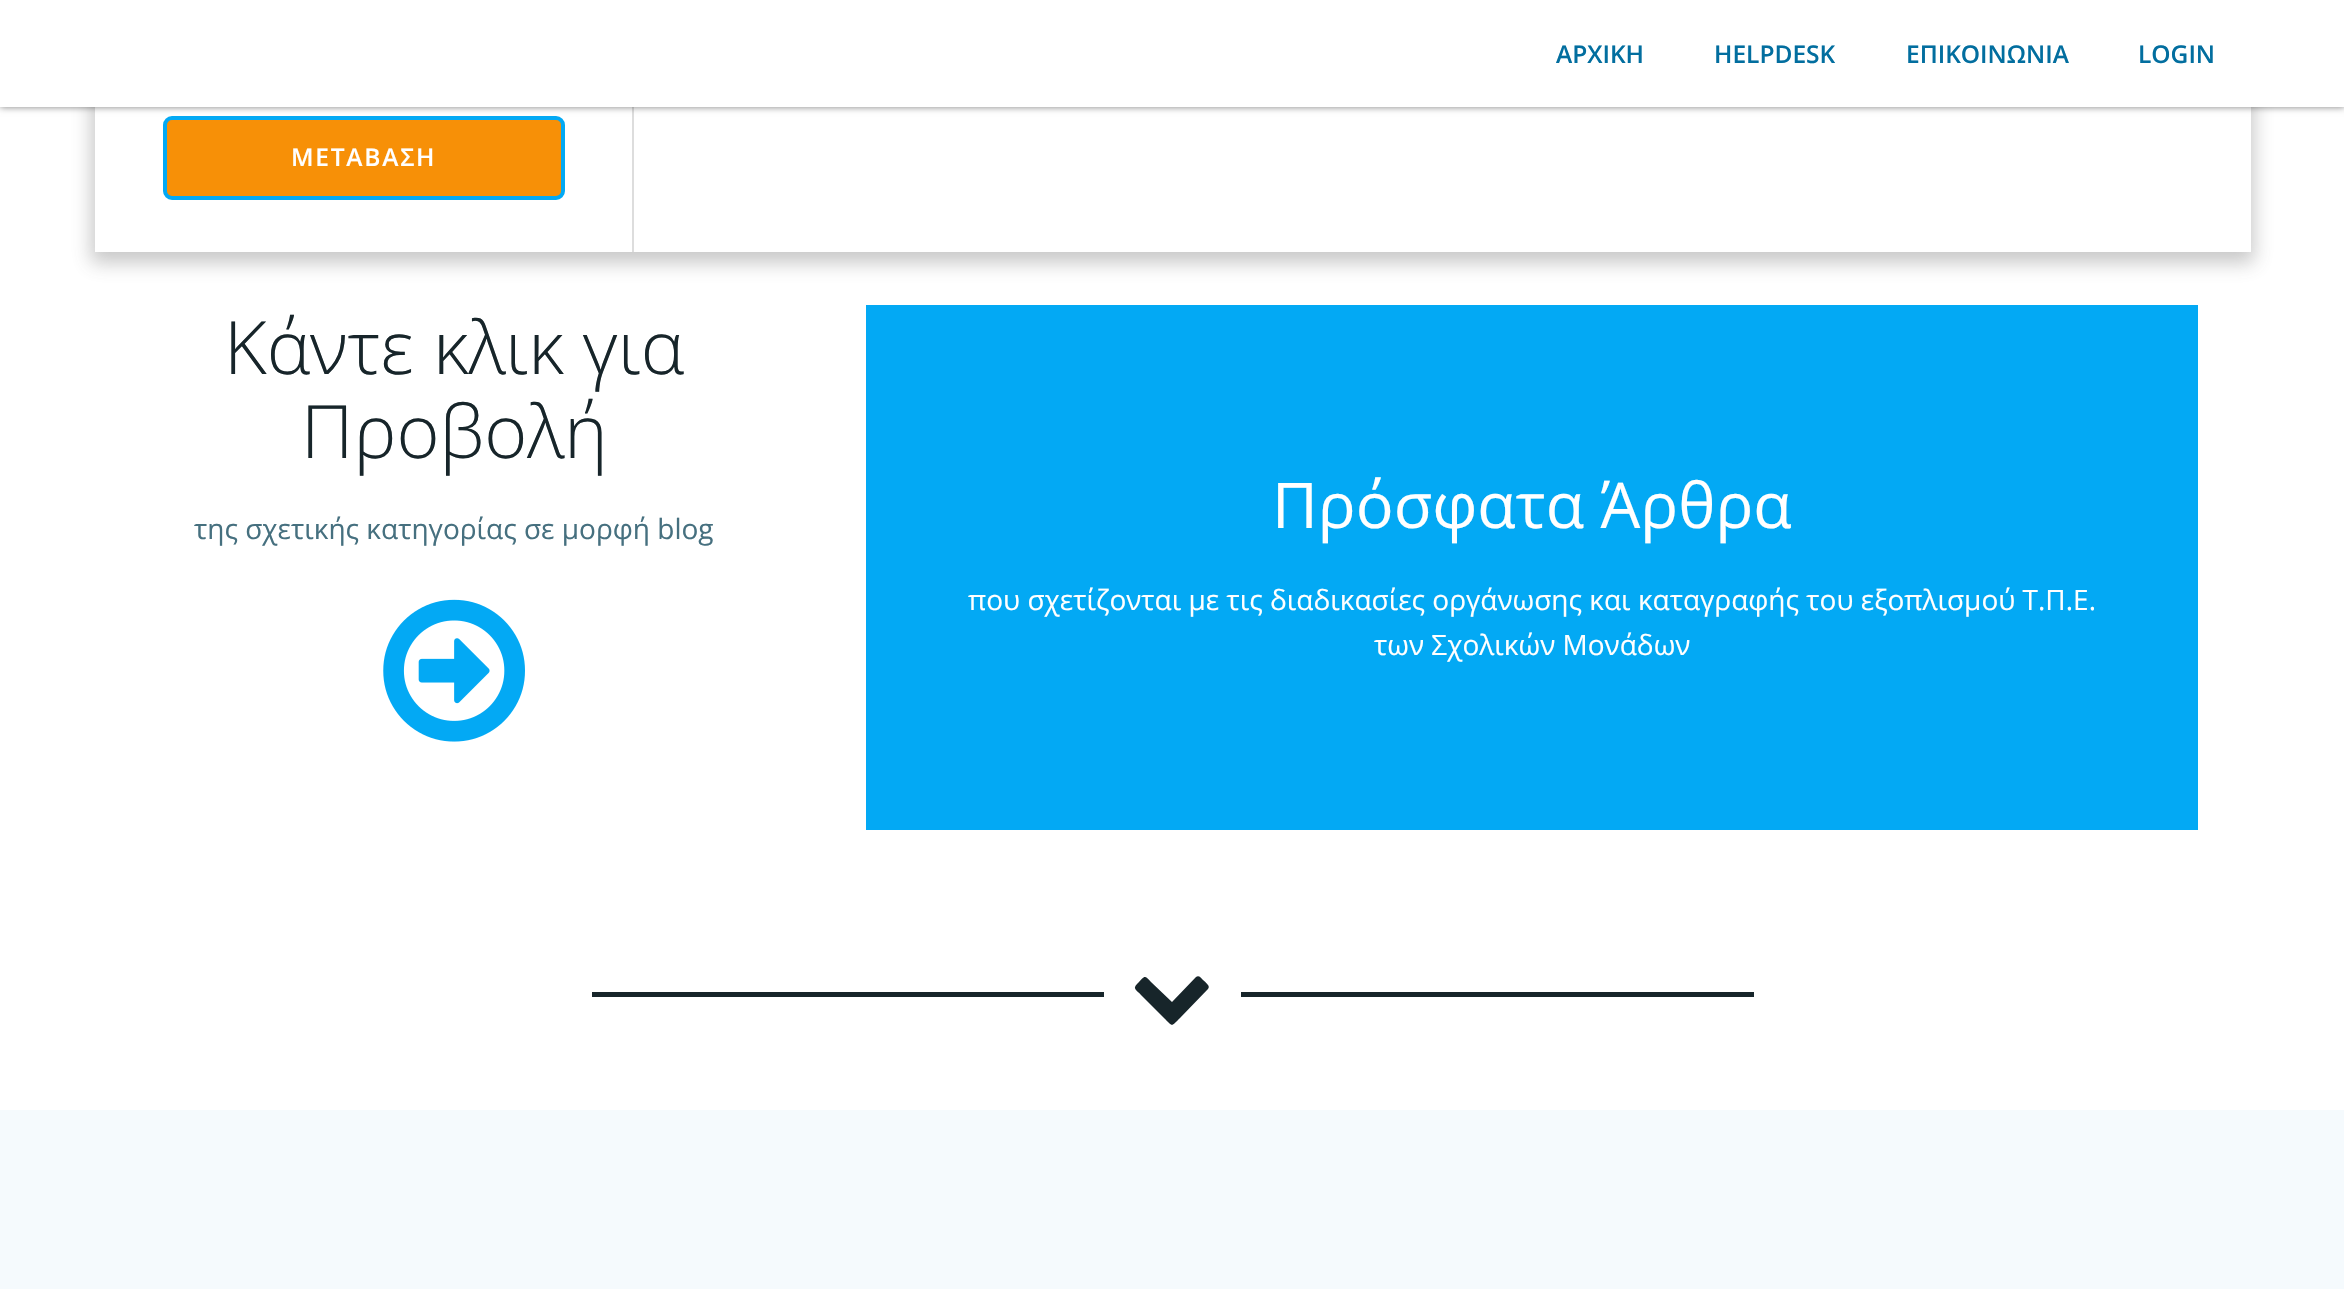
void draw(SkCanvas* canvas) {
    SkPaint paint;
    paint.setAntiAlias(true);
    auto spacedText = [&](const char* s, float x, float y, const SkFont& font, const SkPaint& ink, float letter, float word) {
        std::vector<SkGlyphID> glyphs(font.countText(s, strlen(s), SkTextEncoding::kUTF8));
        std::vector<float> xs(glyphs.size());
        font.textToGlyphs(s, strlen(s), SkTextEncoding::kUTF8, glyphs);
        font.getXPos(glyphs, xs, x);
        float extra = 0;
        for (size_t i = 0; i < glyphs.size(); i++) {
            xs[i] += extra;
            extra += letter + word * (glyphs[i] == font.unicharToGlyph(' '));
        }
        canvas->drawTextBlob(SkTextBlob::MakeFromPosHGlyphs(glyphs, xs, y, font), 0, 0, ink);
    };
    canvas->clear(0xFFFFFFFF);
    paint.setColor(0x4D4A4A4A);
    paint.setMaskFilter(SkMaskFilter::MakeBlur(kNormal_SkBlurStyle, 9));
    canvas->drawRect(SkRect::MakeXYWH(91, -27, 2163, 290), paint);
    paint.setMaskFilter(nullptr);
    paint.setColor(0xFFFFFFFF);
    canvas->drawRect(SkRect::MakeXYWH(95, 107, 2156, 145), paint);
    paint.setColor(0xFFDDDDDD);
    canvas->drawRect(SkRect::MakeXYWH(632, 107, 2, 145), paint);
    paint.setColor(0xFFF79007);
    canvas->drawRoundRect(SkRect::MakeXYWH(165, 118, 398, 80), 7, 7, paint);
    paint.setStyle(SkPaint::kStroke_Style);
    paint.setStrokeWidth(4);
    paint.setColor(0xFF03A9F4);
    canvas->drawRoundRect(SkRect::MakeXYWH(165, 118, 398, 80), 7, 7, paint);
    paint.setStyle(SkPaint::kFill_Style);
    paint.setColor(0x80000000);
    paint.setMaskFilter(SkMaskFilter::MakeBlur(kNormal_SkBlurStyle, 3.5f));
    canvas->drawRect(SkRect::MakeXYWH(0, 0, 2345, 107), paint);
    paint.setMaskFilter(nullptr);
    paint.setColor(0xFFFFFFFF);
    canvas->drawRect(SkRect::MakeXYWH(0, 0, 2344, 107), paint);
    SkFont font1(fontMgr->matchFamilyStyle("Open Sans", SkFontStyle(600, SkFontStyle::kNormal_Width, SkFontStyle::kUpright_Slant)), 24.5f);
    font1.setSubpixel(true);
    paint.setColor(0xFF026E9F);
    canvas->drawString("ΑΡΧΙΚΗ", 1556, 63, font1, paint);
    canvas->drawString("HELPDESK", 1714, 63, font1, paint);
    canvas->drawString("ΕΠΙΚΟΙΝΩΝΙΑ", 1906, 63, font1, paint);
    canvas->drawString("LOGIN", 2138, 63, font1, paint);
    paint.setColor(0xFFFFFFFF);
    spacedText("ΜΕΤΑΒΑΣΗ", 291, 166, font1, paint, 1.75f, 0);
    SkFont font2(fontMgr->matchFamilyStyle("Open Sans", SkFontStyle(300, SkFontStyle::kNormal_Width, SkFontStyle::kUpright_Slant)), 73.5f);
    font2.setSubpixel(true);
    paint.setColor(0xFF17252A);
    canvas->drawString("Κάντε κλικ για", 224, 374, font2, paint);
    canvas->drawString("Προβολή", 301, 458, font2, paint);
    SkFont font3(fontMgr->matchFamilyStyle("Open Sans", SkFontStyle::Normal()), 28);
    font3.setSubpixel(true);
    paint.setColor(0xFF46707F);
    canvas->drawString("της σχετικής κατηγορίας σε μορφή blog", 194, 539, font3, paint);
    canvas->drawImageRect(SkImages::DeferredFromEncodedData(SkData::MakeFromFileName("img1.png")), SkRect::MakeXYWH(383, 599, 142, 143), SkSamplingOptions());
    paint.setColor(0xFF03A9F4);
    canvas->drawRect(SkRect::MakeXYWH(866, 305, 1332, 525), paint);
    SkFont font4(fontMgr->matchFamilyStyle("Open Sans", SkFontStyle::Normal()), 63);
    font4.setSubpixel(true);
    paint.setColor(0xFFFFFFFF);
    canvas->drawString("Πρόσφατα Άρθρα", 1272, 528, font4, paint);
    canvas->drawString("που σχετίζονται με τις διαδικασίες οργάνωσης και καταγραφής του εξοπλισμού Τ.Π.Ε.", 968, 610, font3, paint);
    canvas->drawString("των Σχολικών Μονάδων", 1374, 655, font3, paint);
    paint.setColor(0xFF17252A);
    canvas->drawRect(SkRect::MakeXYWH(592, 992, 512, 5), paint);
    canvas->drawPath(SkPathBuilder().moveTo(1208, 989).lineTo(1180, 1018).cubicTo(1171, 1027, 1173, 1027, 1164, 1018).lineTo(1141, 995).cubicTo(1137, 990, 1132, 989, 1137, 984).cubicTo(1145, 976, 1144, 974, 1151, 982).lineTo(1172, 1002).lineTo(1196, 977).cubicTo(1199, 975, 1201, 978, 1203, 980).cubicTo(1205, 982, 1211, 986, 1208, 989).close().detach(), paint);
    canvas->drawRect(SkRect::MakeXYWH(1241, 992, 513, 5), paint);
    paint.setColor(0xFFF5FAFD);
    canvas->drawRect(SkRect::MakeXYWH(0, 1110, 2344, 179), paint);
}
